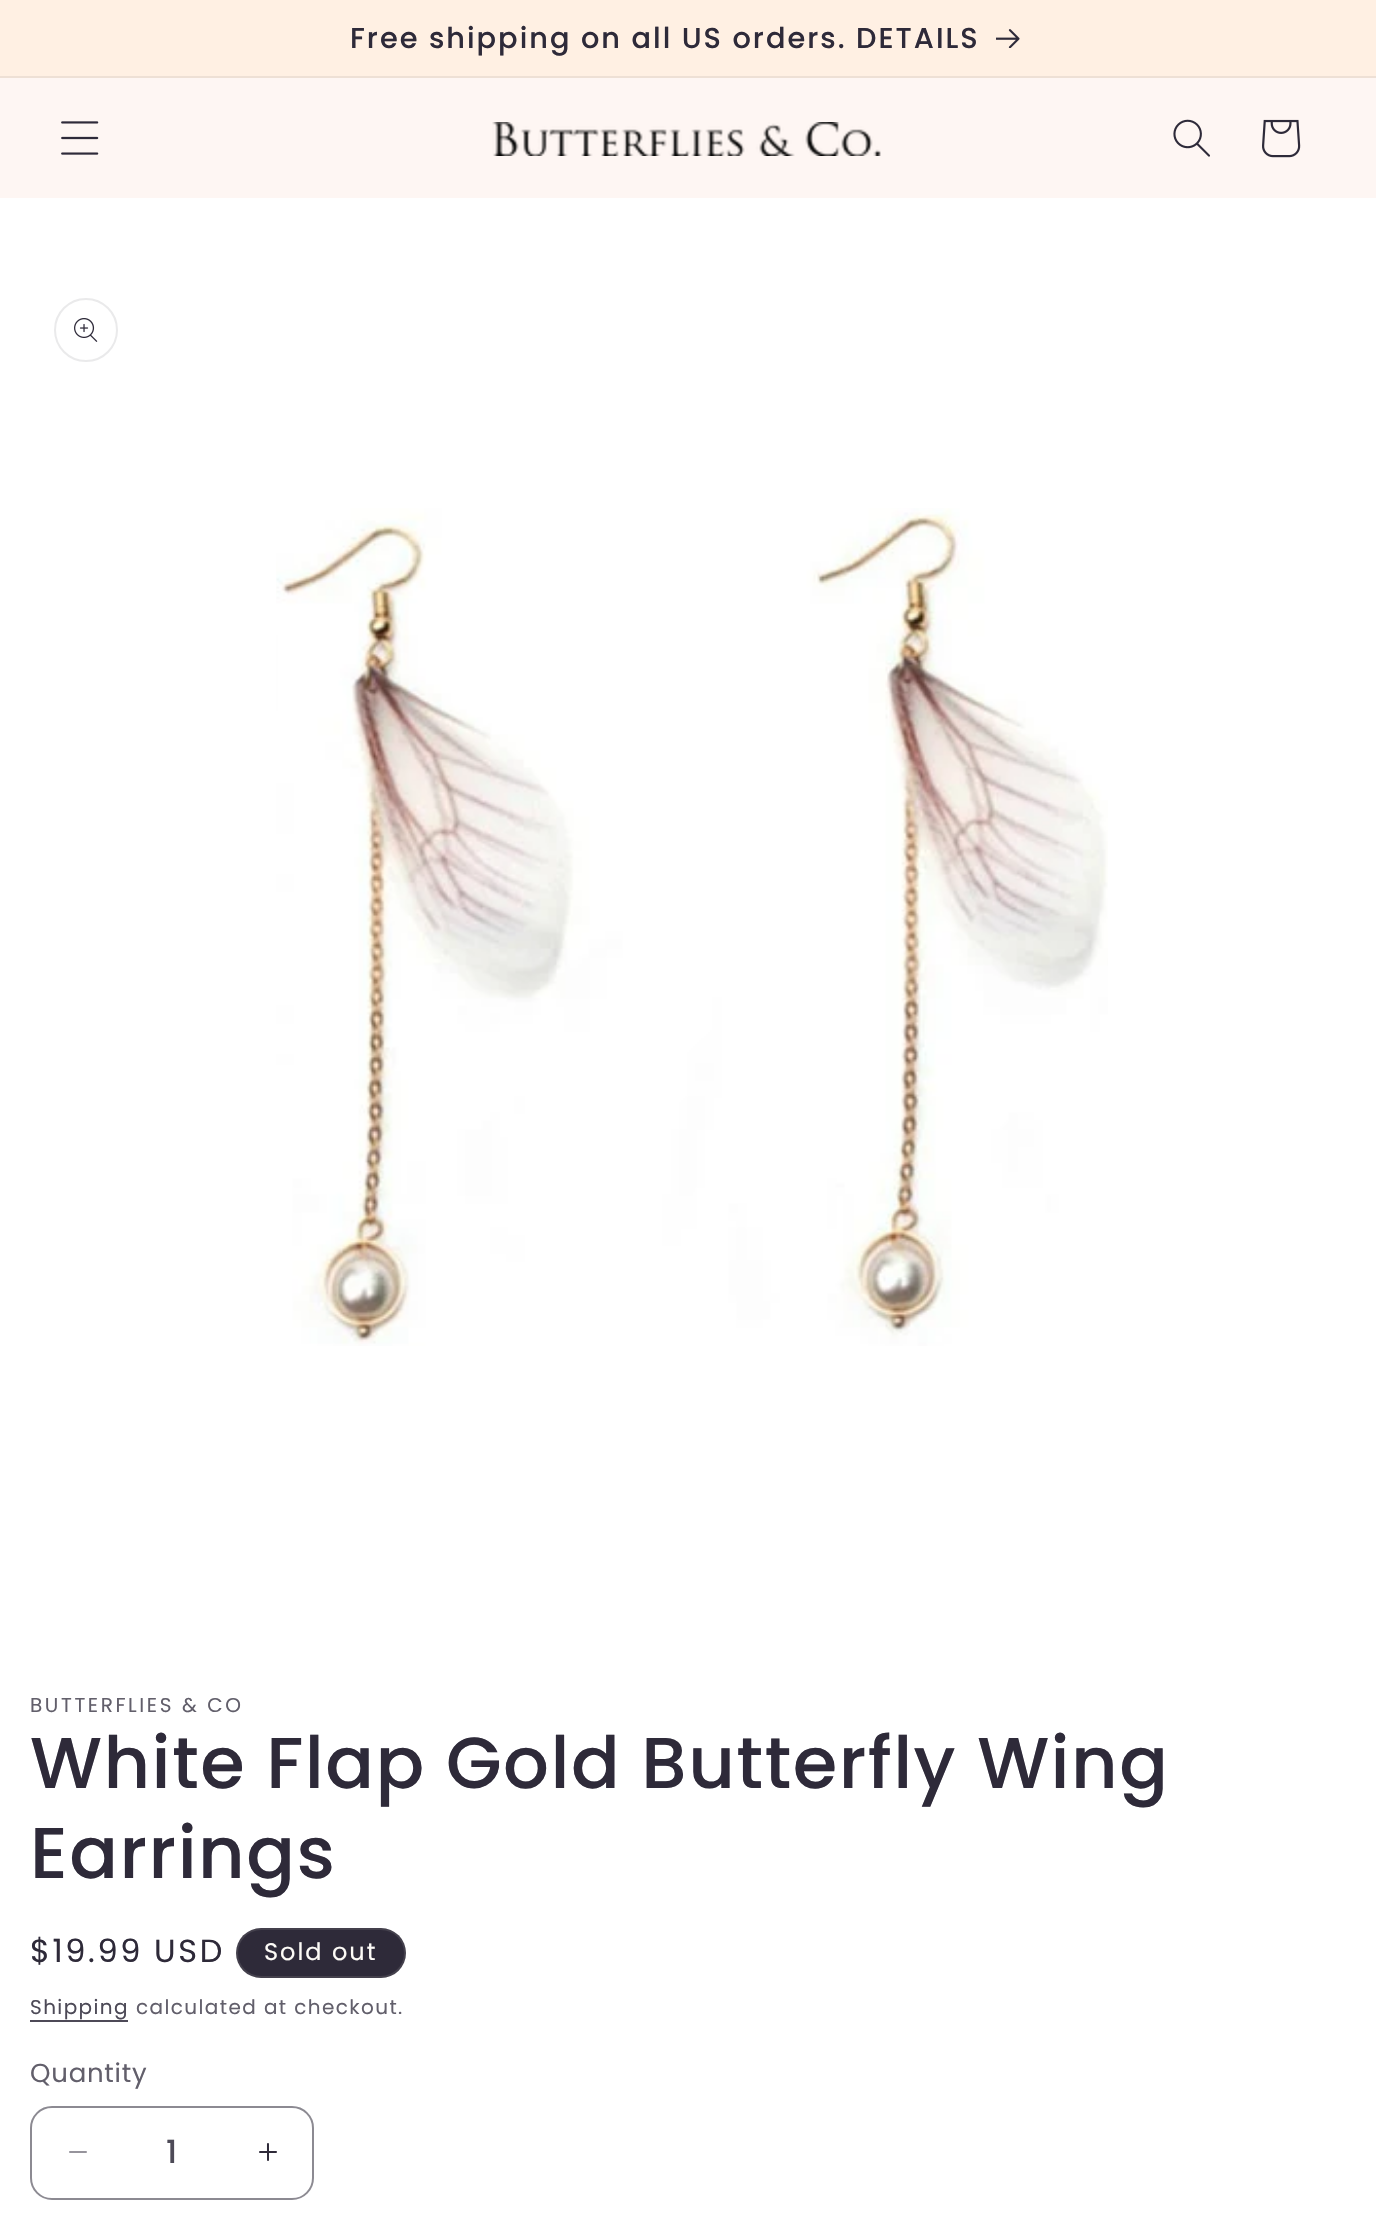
void draw(SkCanvas* canvas) {
    SkPaint paint;
    paint.setAntiAlias(true);
    auto spacedText = [&](const char* s, float x, float y, const SkFont& font, const SkPaint& ink, float letter, float word) {
        std::vector<SkGlyphID> glyphs(font.countText(s, strlen(s), SkTextEncoding::kUTF8));
        std::vector<float> xs(glyphs.size());
        font.textToGlyphs(s, strlen(s), SkTextEncoding::kUTF8, glyphs);
        font.getXPos(glyphs, xs, x);
        float extra = 0;
        for (size_t i = 0; i < glyphs.size(); i++) {
            xs[i] += extra;
            extra += letter + word * (glyphs[i] == font.unicharToGlyph(' '));
        }
        canvas->drawTextBlob(SkTextBlob::MakeFromPosHGlyphs(glyphs, xs, y, font), 0, 0, ink);
    };
    canvas->clear(0xFFFFFFFF);
    paint.setColor(0xFFFFF0E3);
    canvas->drawRect(SkRect::MakeXYWH(0, 0, 1376, 76), paint);
    paint.setColor(0xFFEEE0D5);
    canvas->drawRect(SkRect::MakeXYWH(0, 76, 1376, 2), paint);
    SkFont font1(fontMgr->matchFamilyStyle("Poppins", SkFontStyle(500, SkFontStyle::kNormal_Width, SkFontStyle::kUpright_Slant)), 28.8f);
    font1.setSubpixel(true);
    paint.setColor(0xFF2E2A39);
    spacedText("Free shipping on all US orders. DETAILS", 350, 48, font1, paint, 2, 0);
    canvas->drawImageRect(SkImages::DeferredFromEncodedData(SkData::MakeFromFileName("img1.png")), SkRect::MakeXYWH(996, 29, 24, 19), SkSamplingOptions());
    paint.setColor(0xFFFEF6F3);
    canvas->drawRect(SkRect::MakeXYWH(0, 78, 1376, 120), paint);
    canvas->drawImageRect(SkImages::DeferredFromEncodedData(SkData::MakeFromFileName("img2.png")), SkRect::MakeXYWH(61, 121, 38, 34), SkSamplingOptions());
    canvas->drawImageRect(SkImages::DeferredFromEncodedData(SkData::MakeFromFileName("img3.png")), SkRect::MakeXYWH(492, 122, 389, 34), SkSamplingOptions());
    canvas->drawImageRect(SkImages::DeferredFromEncodedData(SkData::MakeFromFileName("img4.png")), SkRect::MakeXYWH(1173, 119, 37, 38), SkSamplingOptions());
    canvas->drawImageRect(SkImages::DeferredFromEncodedData(SkData::MakeFromFileName("img5.png")), SkRect::MakeXYWH(1262, 119, 39, 39), SkSamplingOptions());
    paint.setStyle(SkPaint::kStroke_Style);
    paint.setStrokeWidth(2);
    paint.setColor(0xFFEAEAEB);
    canvas->drawCircle(86, 330, 31, paint);
    canvas->drawImageRect(SkImages::DeferredFromEncodedData(SkData::MakeFromFileName("img6.png")), SkRect::MakeXYWH(74, 318, 24, 24), SkSamplingOptions());
    canvas->drawImageRect(SkImages::DeferredFromEncodedData(SkData::MakeFromFileName("img7.png")), SkRect::MakeXYWH(276, 508, 832, 838), SkSamplingOptions());
    SkFont font2(fontMgr->matchFamilyStyle("Poppins", SkFontStyle::Normal()), 20);
    font2.setSubpixel(true);
    paint.setStyle(SkPaint::kFill_Style);
    paint.setColor(0xFF625F6B);
    spacedText("BUTTERFLIES & CO", 30, 1712, font2, paint, 2.6f, 0);
    SkFont font3(fontMgr->matchFamilyStyle("Poppins", SkFontStyle(500, SkFontStyle::kNormal_Width, SkFontStyle::kUpright_Slant)), 72);
    font3.setSubpixel(true);
    paint.setColor(0xFF2E2A39);
    spacedText("White Flap Gold Butterfly Wing", 30, 1788, font3, paint, 1.45f, 0);
    spacedText("Earrings", 30, 1878, font3, paint, 1.45f, 0);
    SkFont font4(fontMgr->matchFamilyStyle("Poppins", SkFontStyle::Normal()), 32);
    font4.setSubpixel(true);
    spacedText("$19.99 USD", 30, 1962, font4, paint, 2.6f, 0);
    canvas->drawRoundRect(SkRect::MakeXYWH(236, 1928, 170, 50), 25, 25, paint);
    paint.setStyle(SkPaint::kStroke_Style);
    paint.setColor(0x1AFDFBF7);
    canvas->drawRoundRect(SkRect::MakeXYWH(237, 1929, 168, 48), 24, 24, paint);
    SkFont font5(fontMgr->matchFamilyStyle("Poppins", SkFontStyle::Normal()), 24);
    font5.setSubpixel(true);
    paint.setStyle(SkPaint::kFill_Style);
    paint.setColor(0xFFFDFBF7);
    spacedText("Sold out", 264, 1960, font5, paint, 2, 0);
    paint.setColor(0xFF4D4A57);
    spacedText("Shipping", 30, 2014, font2, paint, 1.4f, 0);
    canvas->drawRect(SkRect::MakeXYWH(30, 2020, 98, 2), paint);
    paint.setColor(0xFF625F6B);
    spacedText("calculated at checkout.", 136, 2014, font2, paint, 1.4f, 0);
    SkFont font6(fontMgr->matchFamilyStyle("Poppins", SkFontStyle::Normal()), 26);
    font6.setSubpixel(true);
    spacedText("Quantity", 30, 2082, font6, paint, 0.75f, 0);
    canvas->drawImageRect(SkImages::DeferredFromEncodedData(SkData::MakeFromFileName("img8.png")), SkRect::MakeXYWH(69, 2151, 18, 2), SkSamplingOptions());
    canvas->drawImageRect(SkImages::DeferredFromEncodedData(SkData::MakeFromFileName("img9.png")), SkRect::MakeXYWH(259, 2143, 18, 18), SkSamplingOptions());
    paint.setStyle(SkPaint::kStroke_Style);
    paint.setColor(0xFF8C8A92);
    canvas->drawRoundRect(SkRect::MakeXYWH(31, 2107, 282, 92), 21, 21, paint);
    SkFont font7(fontMgr->matchFamilyStyle("Poppins", SkFontStyle(500, SkFontStyle::kNormal_Width, SkFontStyle::kUpright_Slant)), 32);
    font7.setSubpixel(true);
    paint.setStyle(SkPaint::kFill_Style);
    paint.setColor(0xFF4D4A57);
    canvas->drawString("1", 166, 2163, font7, paint);
}
